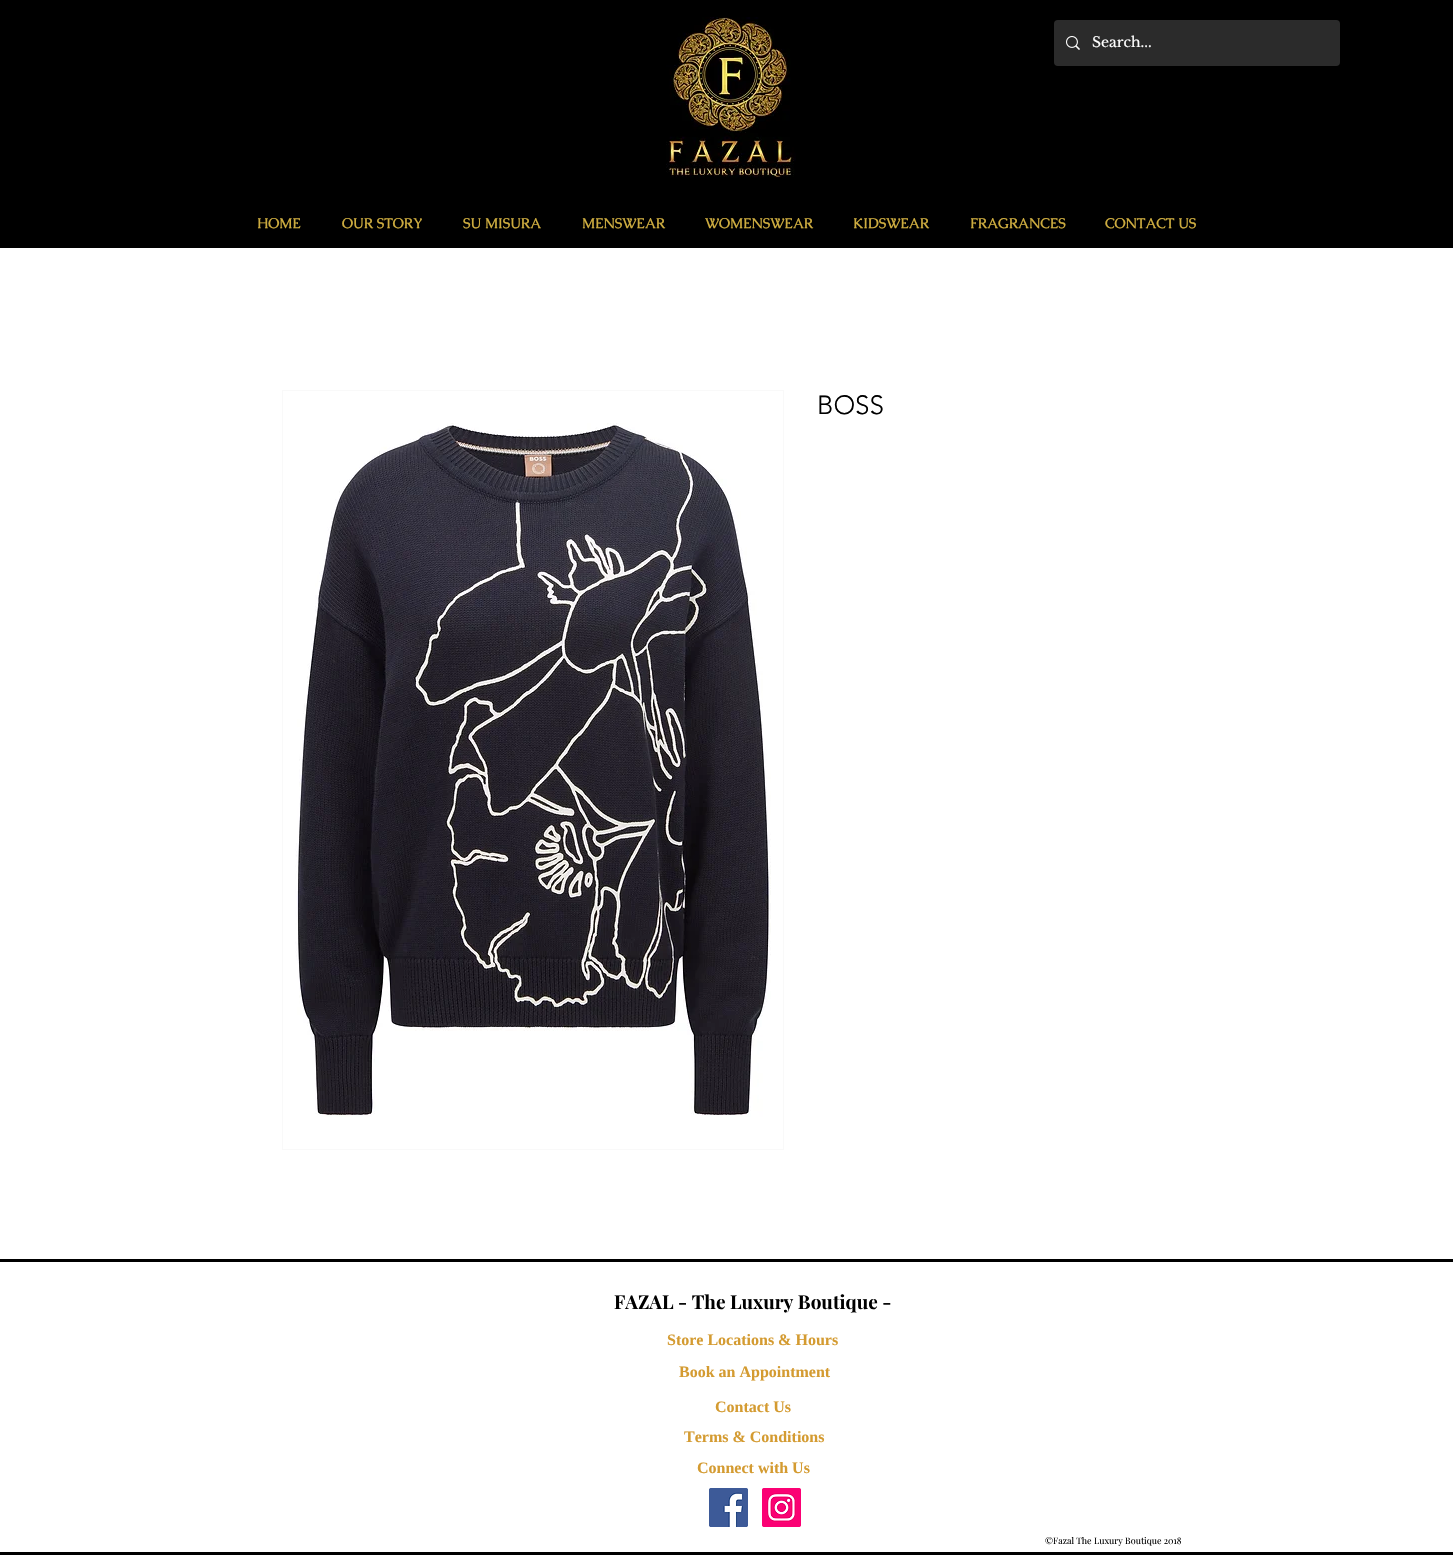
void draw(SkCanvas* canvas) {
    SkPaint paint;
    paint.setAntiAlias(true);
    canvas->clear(0xFFFFFFFF);
    paint.setColor(0xFF000000);
    canvas->drawRect(SkRect::MakeXYWH(0, 0, 1453, 248), paint);
    canvas->drawImageRect(SkImages::DeferredFromEncodedData(SkData::MakeFromFileName("img1.png")), SkRect::MakeXYWH(666, 17, 130, 161), SkSamplingOptions());
    paint.setColor(0xFF2B2B2B);
    canvas->drawRoundRect(SkRect::MakeXYWH(1054, 20, 286, 46), 4, 4, paint);
    canvas->drawImageRect(SkImages::DeferredFromEncodedData(SkData::MakeFromFileName("img2.png")), SkRect::MakeXYWH(1066, 36, 14, 14), SkSamplingOptions());
    SkFont font1(fontMgr->matchFamilyStyle("Libre Baskerville", SkFontStyle::Normal()), 14);
    font1.setSubpixel(true);
    paint.setColor(0xFFFFFFFF);
    canvas->drawString("Search...", 1092, 47, font1, paint);
    SkFont font2(fontMgr->matchFamilyStyle("Caudex", SkFontStyle::Bold()), 14);
    font2.setSubpixel(true);
    paint.setColor(0xFFCCAB3F);
    canvas->drawString("HOME", 257, 228, font2, paint);
    canvas->drawString("OUR STORY", 342, 228, font2, paint);
    canvas->drawString("SU MISURA", 463, 228, font2, paint);
    canvas->drawString("MENSWEAR", 582, 228, font2, paint);
    canvas->drawString("WOMENSWEAR", 705, 228, font2, paint);
    canvas->drawString("KIDSWEAR", 853, 228, font2, paint);
    canvas->drawString("FRAGRANCES", 970, 228, font2, paint);
    canvas->drawString("CONTACT US", 1105, 228, font2, paint);
    paint.setStyle(SkPaint::kStroke_Style);
    paint.setStrokeWidth(1);
    paint.setColor(0xFFF9F9F9);
    canvas->drawRect(SkRect::MakeXYWH(282.5f, 390.5f, 501, 759), paint);
    canvas->drawImageRect(SkImages::DeferredFromEncodedData(SkData::MakeFromFileName("img3.png")), SkRect::MakeXYWH(295, 423, 476, 694), SkSamplingOptions());
    SkFont font3(fontMgr->matchFamilyStyle("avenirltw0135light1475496", SkFontStyle(300, SkFontStyle::kNormal_Width, SkFontStyle::kUpright_Slant)), 26);
    font3.setSubpixel(true);
    paint.setStyle(SkPaint::kFill_Style);
    paint.setColor(0xFF000000);
    canvas->drawString("BOSS", 817, 414, font3, paint);
    canvas->drawRect(SkRect::MakeXYWH(0, 1259, 1453, 3), paint);
    canvas->drawRect(SkRect::MakeXYWH(0, 1552, 1453, 3), paint);
    SkFont font4(fontMgr->matchFamilyStyle("Playfair Display", SkFontStyle::Bold()), 19);
    font4.setSubpixel(true);
    canvas->drawString("FAZAL - The Luxury Boutique -", 614, 1309, font4, paint);
    SkFont font5(fontMgr->matchFamilyStyle("Liberation Serif", SkFontStyle::Bold()), 16);
    font5.setSubpixel(true);
    paint.setColor(0xFFD49B31);
    canvas->drawString("Store Locations & Hours", 667, 1345, font5, paint);
    canvas->drawString("Book an Appointment", 679, 1377, font5, paint);
    canvas->drawString("Contact Us", 715, 1412, font5, paint);
    canvas->drawString("Terms & Conditions", 684, 1442, font5, paint);
    canvas->drawString("Connect with Us", 697, 1473, font5, paint);
    canvas->drawImageRect(SkImages::DeferredFromEncodedData(SkData::MakeFromFileName("img4.png")), SkRect::MakeXYWH(709, 1488, 39, 39), SkSamplingOptions());
    canvas->drawImageRect(SkImages::DeferredFromEncodedData(SkData::MakeFromFileName("img5.png")), SkRect::MakeXYWH(762, 1488, 39, 39), SkSamplingOptions());
    SkFont font6(fontMgr->matchFamilyStyle("Playfair Display", SkFontStyle::Normal()), 9);
    font6.setSubpixel(true);
    paint.setColor(0xFF000000);
    canvas->drawString("©Fazal The Luxury Boutique 2018", 1045, 1544, font6, paint);
}
